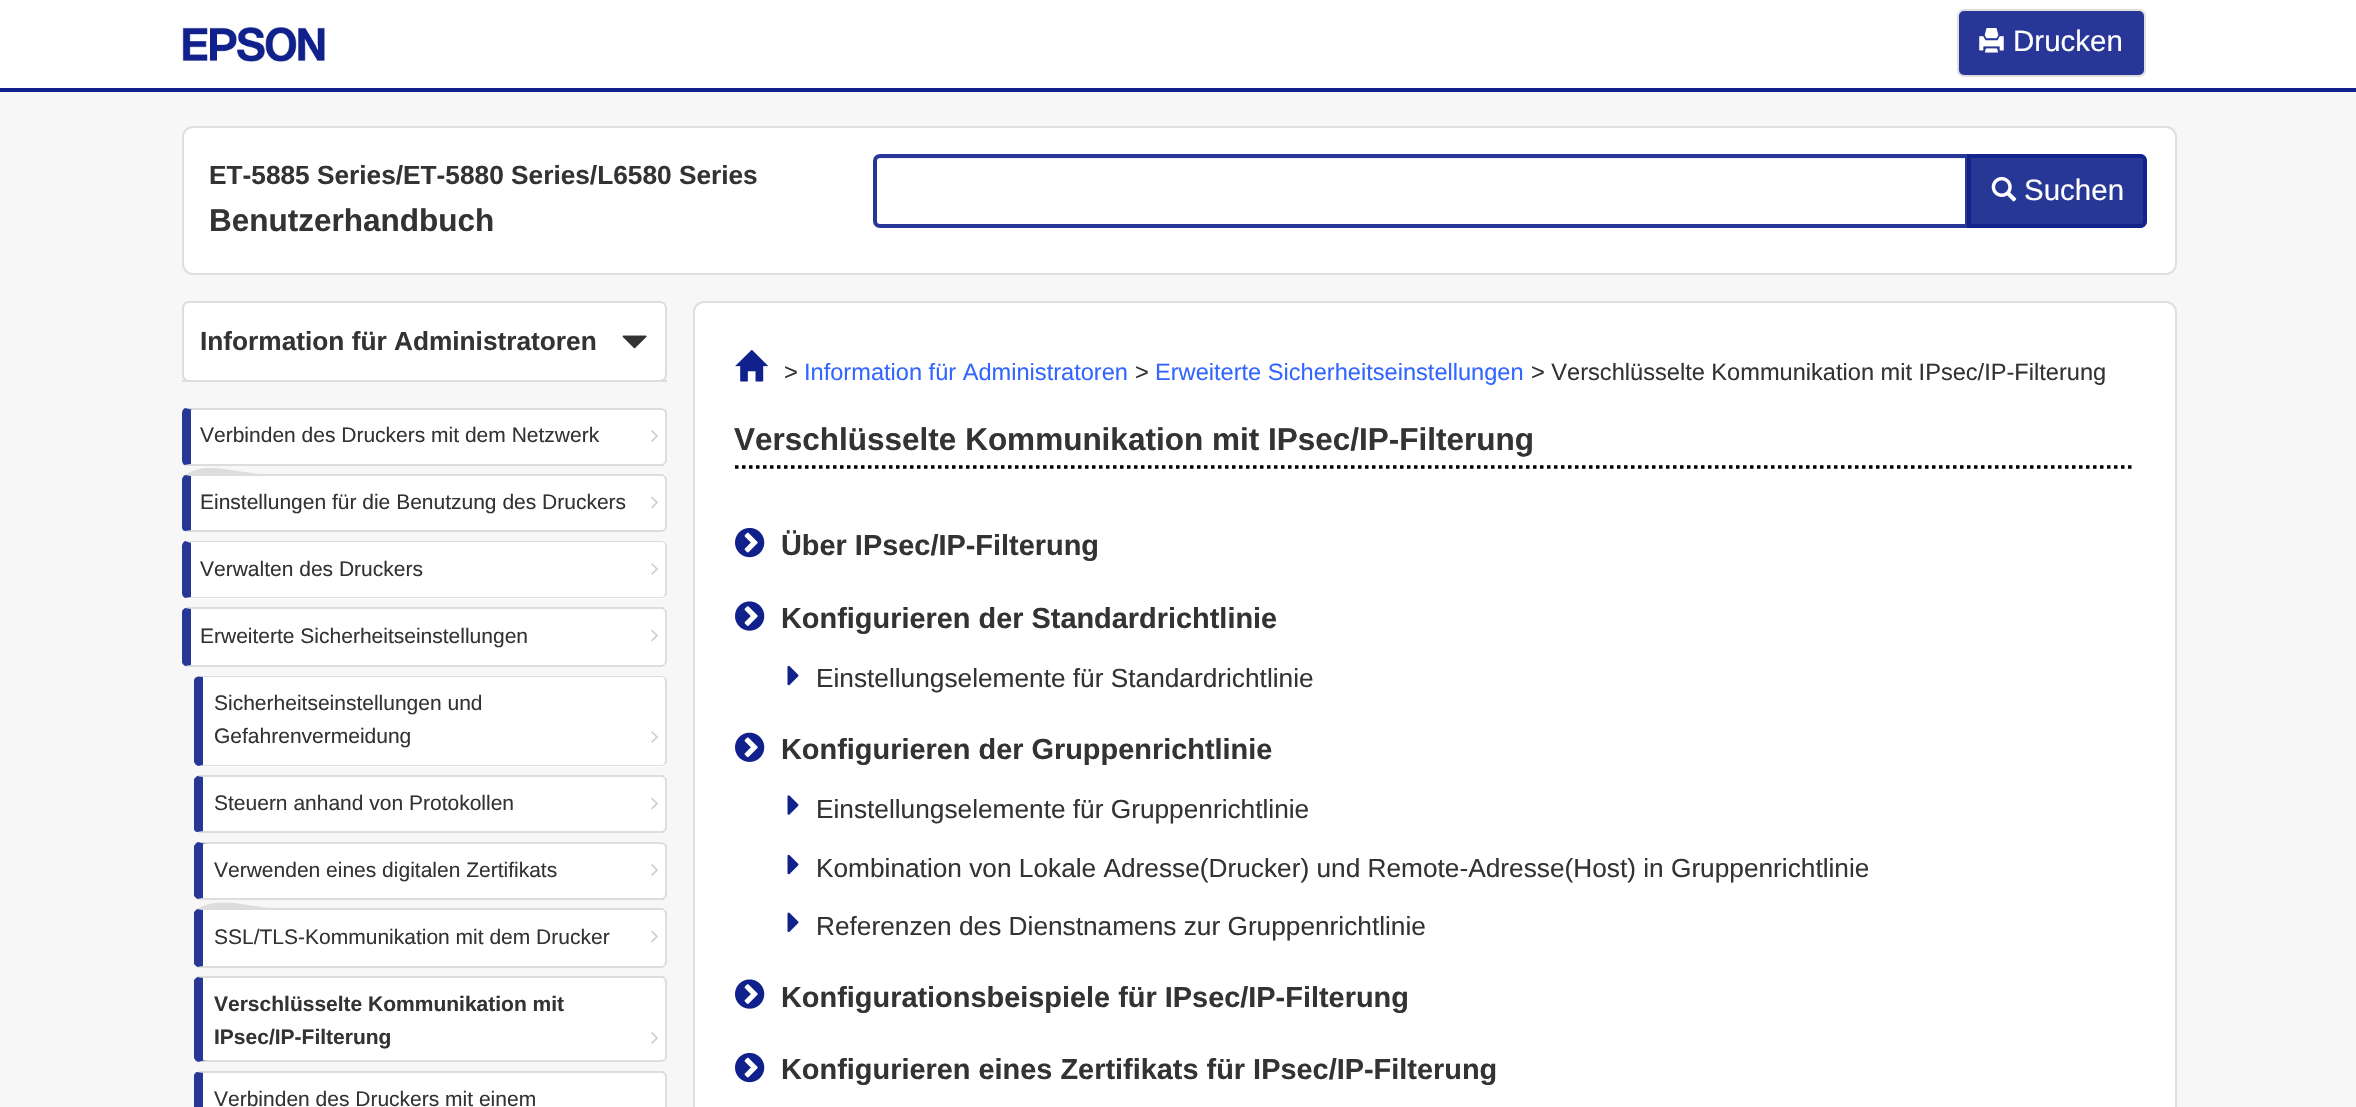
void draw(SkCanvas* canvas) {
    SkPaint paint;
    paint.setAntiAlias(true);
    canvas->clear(0xFFF7F7F7);
    paint.setColor(0xFFFFFFFF);
    canvas->drawRect(SkRect::MakeXYWH(0, 0, 2356, 88), paint);
    paint.setColor(0xFF10218B);
    canvas->drawRect(SkRect::MakeXYWH(0, 88, 2356, 4), paint);
    canvas->drawImageRect(SkImages::DeferredFromEncodedData(SkData::MakeFromFileName("img1.png")), SkRect::MakeXYWH(182, 27, 143, 35), SkSamplingOptions());
    paint.setColor(0xFF283797);
    canvas->drawRoundRect(SkRect::MakeXYWH(1958, 10, 187, 66), 6, 6, paint);
    paint.setStyle(SkPaint::kStroke_Style);
    paint.setStrokeWidth(2);
    paint.setColor(0xFFDFDFDF);
    canvas->drawRoundRect(SkRect::MakeXYWH(1958, 10, 187, 66), 6, 6, paint);
    canvas->drawImageRect(SkImages::DeferredFromEncodedData(SkData::MakeFromFileName("img2.png")), SkRect::MakeXYWH(1979, 28, 25, 25), SkSamplingOptions());
    SkFont font1(fontMgr->matchFamilyStyle("Liberation Sans", SkFontStyle::Normal()), 29.5f);
    font1.setSubpixel(true);
    paint.setStyle(SkPaint::kFill_Style);
    paint.setColor(0xFFFFFFFF);
    canvas->drawString("Drucken", 2013, 51, font1, paint);
    canvas->drawRoundRect(SkRect::MakeXYWH(183, 127, 1993, 147), 10, 10, paint);
    paint.setStyle(SkPaint::kStroke_Style);
    paint.setColor(0xFFDFDFDF);
    canvas->drawRoundRect(SkRect::MakeXYWH(183, 127, 1993, 147), 10, 10, paint);
    SkFont font2(fontMgr->matchFamilyStyle("Liberation Sans", SkFontStyle::Bold()), 26.25f);
    font2.setSubpixel(true);
    paint.setStyle(SkPaint::kFill_Style);
    paint.setColor(0xFF333333);
    canvas->drawString("ET-5885 Series/ET-5880 Series/L6580 Series", 209, 184, font2, paint);
    SkFont font3(fontMgr->matchFamilyStyle("Liberation Sans", SkFontStyle::Bold()), 31.5f);
    font3.setSubpixel(true);
    canvas->drawString("Benutzerhandbuch", 209, 231, font3, paint);
    paint.setColor(0xFFECECEC);
    canvas->drawPath(SkPathBuilder().moveTo(880, 159).lineTo(1965, 159).lineTo(1965, 158).lineTo(881, 158).cubicTo(878, 158, 877, 160, 877, 163).cubicTo(877, 161, 878, 159, 880, 159).close().detach(), paint);
    paint.setStyle(SkPaint::kStroke_Style);
    paint.setStrokeWidth(4);
    paint.setColor(0xFF283797);
    canvas->drawPath(SkPathBuilder().moveTo(880, 156).lineTo(1967, 156).lineTo(1967, 226).lineTo(880, 226).cubicTo(877, 226, 875, 224, 875, 221).lineTo(875, 161).cubicTo(875, 158, 877, 156, 880, 156).close().detach(), paint);
    paint.setStyle(SkPaint::kFill_Style);
    paint.setColor(0xE610218B);
    canvas->drawPath(SkPathBuilder().moveTo(1967, 154).lineTo(2140, 154).cubicTo(2144, 154, 2147, 157, 2147, 161).lineTo(2147, 221).cubicTo(2147, 225, 2144, 228, 2140, 228).lineTo(1967, 228).close().detach(), paint);
    paint.setStyle(SkPaint::kStroke_Style);
    canvas->drawPath(SkPathBuilder().moveTo(1969, 156).lineTo(2140, 156).cubicTo(2143, 156, 2145, 158, 2145, 161).lineTo(2145, 221).cubicTo(2145, 224, 2143, 226, 2140, 226).lineTo(1969, 226).close().detach(), paint);
    canvas->drawImageRect(SkImages::DeferredFromEncodedData(SkData::MakeFromFileName("img3.png")), SkRect::MakeXYWH(1991, 176, 26, 26), SkSamplingOptions());
    paint.setStyle(SkPaint::kFill_Style);
    paint.setColor(0xFFFFFFFF);
    canvas->drawString("Suchen", 2024, 200, font1, paint);
    paint.setColor(0xFFDDDDDD);
    canvas->drawRect(SkRect::MakeXYWH(182, 380, 485, 2), paint);
    paint.setColor(0xFFFFFFFF);
    canvas->drawRoundRect(SkRect::MakeXYWH(183, 302, 483, 79), 6, 6, paint);
    paint.setStyle(SkPaint::kStroke_Style);
    paint.setStrokeWidth(2);
    paint.setColor(0xFFDDDDDD);
    canvas->drawRoundRect(SkRect::MakeXYWH(183, 302, 483, 79), 6, 6, paint);
    paint.setStyle(SkPaint::kFill_Style);
    paint.setColor(0xFF333333);
    canvas->drawString("Information für Administratoren", 200, 350, font2, paint);
    canvas->drawImageRect(SkImages::DeferredFromEncodedData(SkData::MakeFromFileName("img4.png")), SkRect::MakeXYWH(622, 335, 25, 14), SkSamplingOptions());
    paint.setColor(0xFFFFFFFF);
    canvas->drawRoundRect(SkRect::MakeXYWH(182, 408, 485, 58), 5, 5, paint);
    paint.setColor(0xFFDDDDDD);
    canvas->drawPath(SkPathBuilder().moveTo(187, 408).lineTo(185, 408).lineTo(193, 410).lineTo(662, 410).lineTo(664, 411).lineTo(665, 409).lineTo(662, 408).close().detach(), paint);
    canvas->drawPath(SkPathBuilder().moveTo(665, 409).lineTo(667, 412).lineTo(667, 462).lineTo(665, 464).lineTo(664, 463).lineTo(665, 460).lineTo(665, 413).lineTo(664, 411).close().detach(), paint);
    canvas->drawPath(SkPathBuilder().moveTo(185, 466).lineTo(184, 465).lineTo(191, 464).lineTo(662, 464).lineTo(664, 463).lineTo(665, 464).lineTo(664, 466).close().detach(), paint);
    paint.setColor(0xE610218B);
    canvas->drawPath(SkPathBuilder().moveTo(191, 410).lineTo(193, 410).lineTo(185, 408).cubicTo(183, 409, 182, 411, 182, 413).lineTo(182, 460).cubicTo(182, 462, 183, 464, 184, 465).lineTo(191, 464).close().detach(), paint);
    SkFont font4(fontMgr->matchFamilyStyle("Liberation Sans", SkFontStyle::Normal()), 21);
    font4.setSubpixel(true);
    paint.setColor(0xFF333333);
    canvas->drawString("Verbinden des Druckers mit dem Netzwerk", 200, 442, font4, paint);
    canvas->drawImageRect(SkImages::DeferredFromEncodedData(SkData::MakeFromFileName("img5.png")), SkRect::MakeXYWH(651, 430, 7, 12), SkSamplingOptions());
    paint.setColor(0xFFFFFFFF);
    canvas->drawRoundRect(SkRect::MakeXYWH(182, 474, 485, 58), 5, 5, paint);
    paint.setColor(0xFFDDDDDD);
    canvas->drawPath(SkPathBuilder().moveTo(191, 476).lineTo(185, 475).cubicTo(207, 460, 238, 474, 265, 474).lineTo(663, 474).lineTo(665, 476).lineTo(664, 477).lineTo(662, 476).close().detach(), paint);
    canvas->drawPath(SkPathBuilder().moveTo(667, 528).lineTo(665, 531).lineTo(664, 529).lineTo(665, 527).lineTo(665, 480).lineTo(664, 477).lineTo(665, 476).lineTo(667, 478).close().detach(), paint);
    canvas->drawPath(SkPathBuilder().moveTo(187, 532).lineTo(662, 532).lineTo(665, 531).lineTo(664, 529).lineTo(662, 530).lineTo(192, 530).lineTo(185, 531).close().detach(), paint);
    paint.setColor(0xE610218B);
    canvas->drawPath(SkPathBuilder().moveTo(182, 480).lineTo(182, 527).cubicTo(182, 529, 183, 531, 185, 531).lineTo(192, 530).lineTo(191, 530).lineTo(191, 476).lineTo(185, 475).cubicTo(183, 476, 182, 478, 182, 480).close().detach(), paint);
    paint.setColor(0xFF333333);
    canvas->drawString("Einstellungen für die Benutzung des Druckers", 200, 509, font4, paint);
    canvas->drawImageRect(SkImages::DeferredFromEncodedData(SkData::MakeFromFileName("img6.png")), SkRect::MakeXYWH(651, 496, 7, 13), SkSamplingOptions());
    paint.setColor(0xFFFFFFFF);
    canvas->drawRoundRect(SkRect::MakeXYWH(182, 541, 485, 58), 5, 5, paint);
    paint.setColor(0xFFDDDDDD);
    canvas->drawPath(SkPathBuilder().moveTo(187, 541).lineTo(185, 541).lineTo(191, 543).lineTo(191, 542).lineTo(662, 542).lineTo(664, 543).lineTo(665, 542).lineTo(662, 541).close().detach(), paint);
    canvas->drawPath(SkPathBuilder().moveTo(665, 542).lineTo(667, 545).lineTo(667, 594).lineTo(665, 597).lineTo(664, 596).lineTo(665, 593).lineTo(665, 554).cubicTo(665, 551, 666, 546, 664, 543).close().detach(), paint);
    canvas->drawPath(SkPathBuilder().moveTo(665, 597).lineTo(662, 598).lineTo(185, 598).lineTo(191, 597).lineTo(662, 597).lineTo(664, 596).close().detach(), paint);
    paint.setColor(0xE610218B);
    canvas->drawPath(SkPathBuilder().moveTo(182, 546).lineTo(182, 593).cubicTo(182, 595, 183, 597, 185, 598).lineTo(191, 597).lineTo(191, 543).lineTo(185, 541).cubicTo(183, 542, 182, 544, 182, 546).close().detach(), paint);
    paint.setColor(0xFF333333);
    canvas->drawString("Verwalten des Druckers", 200, 576, font4, paint);
    canvas->drawImageRect(SkImages::DeferredFromEncodedData(SkData::MakeFromFileName("img5.png")), SkRect::MakeXYWH(651, 563, 7, 12), SkSamplingOptions());
    paint.setColor(0xFFFFFFFF);
    canvas->drawRoundRect(SkRect::MakeXYWH(182, 607, 485, 60), 5, 5, paint);
    paint.setColor(0xFFDDDDDD);
    canvas->drawPath(SkPathBuilder().moveTo(191, 609).lineTo(185, 608).lineTo(186, 607).lineTo(663, 607).lineTo(665, 609).lineTo(664, 610).lineTo(662, 609).close().detach(), paint);
    canvas->drawPath(SkPathBuilder().moveTo(667, 663).lineTo(665, 665).lineTo(664, 664).lineTo(665, 662).lineTo(665, 612).lineTo(664, 610).lineTo(665, 609).lineTo(667, 611).close().detach(), paint);
    canvas->drawPath(SkPathBuilder().moveTo(186, 667).lineTo(185, 666).lineTo(191, 665).lineTo(662, 665).lineTo(664, 664).lineTo(665, 665).lineTo(663, 667).close().detach(), paint);
    paint.setColor(0xE610218B);
    canvas->drawPath(SkPathBuilder().moveTo(182, 612).lineTo(182, 662).cubicTo(182, 663, 183, 665, 185, 666).lineTo(191, 665).lineTo(191, 609).lineTo(185, 608).cubicTo(183, 609, 182, 611, 182, 612).close().detach(), paint);
    paint.setColor(0xFF333333);
    canvas->drawString("Erweiterte Sicherheitseinstellungen", 200, 643, font4, paint);
    canvas->drawImageRect(SkImages::DeferredFromEncodedData(SkData::MakeFromFileName("img6.png")), SkRect::MakeXYWH(651, 629, 7, 13), SkSamplingOptions());
    paint.setColor(0xFFFFFFFF);
    canvas->drawRoundRect(SkRect::MakeXYWH(194, 676, 473, 91), 5, 5, paint);
    paint.setColor(0xFFDDDDDD);
    canvas->drawPath(SkPathBuilder().moveTo(200, 676).lineTo(198, 676).lineTo(203, 677).lineTo(662, 677).lineTo(664, 678).lineTo(665, 677).lineTo(662, 676).close().detach(), paint);
    canvas->drawPath(SkPathBuilder().moveTo(665, 677).lineTo(667, 680).lineTo(667, 762).lineTo(665, 765).lineTo(664, 764).lineTo(665, 761).lineTo(665, 681).lineTo(664, 678).close().detach(), paint);
    canvas->drawPath(SkPathBuilder().moveTo(665, 765).lineTo(662, 766).lineTo(198, 766).lineTo(203, 765).lineTo(662, 765).lineTo(664, 764).close().detach(), paint);
    paint.setColor(0xE610218B);
    canvas->drawPath(SkPathBuilder().moveTo(194, 680).cubicTo(196, 675, 200, 677, 203, 677).lineTo(203, 765).lineTo(198, 766).cubicTo(196, 765, 195, 764, 194, 762).close().detach(), paint);
    paint.setColor(0xFF333333);
    canvas->drawString("Sicherheitseinstellungen und", 214, 710, font4, paint);
    canvas->drawString("Gefahrenvermeidung", 214, 743, font4, paint);
    canvas->drawImageRect(SkImages::DeferredFromEncodedData(SkData::MakeFromFileName("img5.png")), SkRect::MakeXYWH(651, 731, 7, 12), SkSamplingOptions());
    paint.setColor(0xFFFFFFFF);
    canvas->drawRoundRect(SkRect::MakeXYWH(194, 775, 473, 58), 5, 5, paint);
    paint.setColor(0xFFDDDDDD);
    canvas->drawPath(SkPathBuilder().moveTo(203, 777).lineTo(197, 776).lineTo(198, 775).lineTo(663, 775).lineTo(665, 777).lineTo(664, 778).lineTo(662, 777).close().detach(), paint);
    canvas->drawPath(SkPathBuilder().moveTo(667, 829).lineTo(665, 832).lineTo(664, 830).lineTo(665, 828).lineTo(665, 780).lineTo(664, 778).lineTo(665, 777).lineTo(667, 779).close().detach(), paint);
    canvas->drawPath(SkPathBuilder().moveTo(200, 833).lineTo(662, 833).cubicTo(663, 833, 664, 832, 665, 832).lineTo(664, 830).lineTo(662, 831).lineTo(204, 831).lineTo(197, 832).close().detach(), paint);
    paint.setColor(0xE610218B);
    canvas->drawPath(SkPathBuilder().moveTo(203, 777).lineTo(203, 831).lineTo(204, 831).lineTo(197, 832).cubicTo(196, 832, 194, 831, 194, 829).lineTo(194, 779).lineTo(197, 776).close().detach(), paint);
    paint.setColor(0xFF333333);
    canvas->drawString("Steuern anhand von Protokollen", 214, 810, font4, paint);
    canvas->drawImageRect(SkImages::DeferredFromEncodedData(SkData::MakeFromFileName("img6.png")), SkRect::MakeXYWH(651, 797, 7, 13), SkSamplingOptions());
    paint.setColor(0xFFFFFFFF);
    canvas->drawRoundRect(SkRect::MakeXYWH(194, 842, 473, 58), 5, 5, paint);
    paint.setColor(0xFFDDDDDD);
    canvas->drawPath(SkPathBuilder().moveTo(200, 842).lineTo(198, 842).lineTo(206, 844).lineTo(662, 844).lineTo(664, 845).lineTo(665, 843).lineTo(662, 842).close().detach(), paint);
    canvas->drawPath(SkPathBuilder().moveTo(665, 843).lineTo(667, 846).lineTo(667, 896).lineTo(665, 898).lineTo(664, 897).lineTo(665, 894).lineTo(665, 847).lineTo(664, 845).close().detach(), paint);
    canvas->drawPath(SkPathBuilder().moveTo(198, 900).lineTo(197, 899).lineTo(203, 898).lineTo(662, 898).lineTo(664, 897).lineTo(665, 898).lineTo(664, 900).close().detach(), paint);
    paint.setColor(0xE610218B);
    canvas->drawPath(SkPathBuilder().moveTo(203, 844).lineTo(203, 898).lineTo(197, 899).cubicTo(196, 898, 195, 897, 194, 896).lineTo(194, 846).cubicTo(195, 844, 196, 843, 198, 842).lineTo(206, 844).close().detach(), paint);
    paint.setColor(0xFF333333);
    canvas->drawString("Verwenden eines digitalen Zertifikats", 214, 877, font4, paint);
    canvas->drawImageRect(SkImages::DeferredFromEncodedData(SkData::MakeFromFileName("img5.png")), SkRect::MakeXYWH(651, 864, 7, 12), SkSamplingOptions());
    paint.setColor(0xFFFFFFFF);
    canvas->drawRoundRect(SkRect::MakeXYWH(194, 908, 473, 60), 5, 5, paint);
    paint.setColor(0xFFDDDDDD);
    canvas->drawPath(SkPathBuilder().moveTo(203, 910).lineTo(197, 909).cubicTo(220, 895, 250, 908, 276, 908).lineTo(663, 908).lineTo(665, 910).lineTo(664, 911).lineTo(662, 910).close().detach(), paint);
    canvas->drawPath(SkPathBuilder().moveTo(667, 964).lineTo(665, 966).lineTo(664, 965).lineTo(665, 962).lineTo(665, 914).lineTo(664, 911).lineTo(665, 910).lineTo(667, 912).close().detach(), paint);
    canvas->drawPath(SkPathBuilder().moveTo(198, 968).lineTo(197, 967).lineTo(203, 966).lineTo(662, 966).lineTo(664, 965).lineTo(665, 966).lineTo(663, 968).close().detach(), paint);
    paint.setColor(0xE610218B);
    canvas->drawPath(SkPathBuilder().moveTo(203, 910).lineTo(203, 966).lineTo(197, 967).cubicTo(196, 966, 195, 965, 194, 964).lineTo(194, 912).cubicTo(195, 911, 196, 910, 197, 909).close().detach(), paint);
    paint.setColor(0xFF333333);
    canvas->drawString("SSL/TLS-Kommunikation mit dem Drucker", 214, 944, font4, paint);
    canvas->drawImageRect(SkImages::DeferredFromEncodedData(SkData::MakeFromFileName("img6.png")), SkRect::MakeXYWH(651, 930, 7, 13), SkSamplingOptions());
    paint.setColor(0xFFFFFFFF);
    canvas->drawRoundRect(SkRect::MakeXYWH(194, 977, 473, 85), 5, 5, paint);
    paint.setColor(0xFFDDDDDD);
    canvas->drawPath(SkPathBuilder().moveTo(203, 978).lineTo(197, 977).lineTo(198, 976).lineTo(664, 976).lineTo(665, 978).lineTo(664, 979).lineTo(662, 978).close().detach(), paint);
    canvas->drawPath(SkPathBuilder().moveTo(667, 1058).lineTo(665, 1061).lineTo(664, 1059).lineTo(665, 1058).lineTo(665, 982).lineTo(664, 979).lineTo(665, 978).lineTo(667, 980).close().detach(), paint);
    canvas->drawPath(SkPathBuilder().moveTo(665, 1061).lineTo(662, 1062).lineTo(200, 1062).lineTo(198, 1062).lineTo(206, 1060).lineTo(662, 1060).lineTo(664, 1059).close().detach(), paint);
    paint.setColor(0xE610218B);
    canvas->drawPath(SkPathBuilder().moveTo(194, 980).cubicTo(195, 979, 196, 978, 197, 977).lineTo(203, 978).lineTo(203, 1060).lineTo(206, 1060).lineTo(198, 1062).cubicTo(196, 1061, 195, 1060, 194, 1058).close().detach(), paint);
    SkFont font5(fontMgr->matchFamilyStyle("Liberation Sans", SkFontStyle::Bold()), 21);
    font5.setSubpixel(true);
    paint.setColor(0xFF333333);
    canvas->drawString("Verschlüsselte Kommunikation mit", 214, 1011, font5, paint);
    canvas->drawString("IPsec/IP-Filterung", 214, 1044, font5, paint);
    canvas->drawImageRect(SkImages::DeferredFromEncodedData(SkData::MakeFromFileName("img5.png")), SkRect::MakeXYWH(651, 1032, 7, 12), SkSamplingOptions());
    paint.setColor(0xFFFFFFFF);
    canvas->drawRoundRect(SkRect::MakeXYWH(194, 1071, 473, 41), 5, 5, paint);
    paint.setColor(0xFFDDDDDD);
    canvas->drawPath(SkPathBuilder().moveTo(200, 1071).lineTo(197, 1072).lineTo(204, 1073).lineTo(662, 1073).lineTo(664, 1074).lineTo(665, 1072).lineTo(662, 1071).close().detach(), paint);
    canvas->drawPath(SkPathBuilder().moveTo(667, 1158).lineTo(665, 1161).lineTo(664, 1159).lineTo(665, 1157).lineTo(665, 1076).lineTo(664, 1074).lineTo(665, 1072).lineTo(667, 1075).close().detach(), paint);
    paint.setColor(0xE610218B);
    canvas->drawPath(SkPathBuilder().moveTo(203, 1073).lineTo(203, 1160).lineTo(204, 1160).lineTo(197, 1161).cubicTo(196, 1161, 195, 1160, 194, 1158).lineTo(194, 1075).cubicTo(195, 1073, 196, 1072, 197, 1072).lineTo(204, 1073).close().detach(), paint);
    paint.setColor(0xFF333333);
    canvas->drawString("Verbinden des Druckers mit einem", 214, 1106, font4, paint);
    paint.setColor(0xFFFFFFFF);
    canvas->drawRoundRect(SkRect::MakeXYWH(694, 302, 1482, 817), 10, 10, paint);
    paint.setStyle(SkPaint::kStroke_Style);
    paint.setColor(0xFFDFDFDF);
    canvas->drawRoundRect(SkRect::MakeXYWH(694, 302, 1482, 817), 10, 10, paint);
    canvas->drawImageRect(SkImages::DeferredFromEncodedData(SkData::MakeFromFileName("img7.png")), SkRect::MakeXYWH(735, 350, 33, 32), SkSamplingOptions());
    SkFont font6(fontMgr->matchFamilyStyle("Liberation Sans", SkFontStyle::Normal()), 23.6f);
    font6.setSubpixel(true);
    paint.setStyle(SkPaint::kFill_Style);
    paint.setColor(0xFF333333);
    canvas->drawString(">", 784, 380, font6, paint);
    paint.setColor(0xFF3366FF);
    canvas->drawString("Information für Administratoren", 804, 380, font6, paint);
    paint.setColor(0xFF333333);
    canvas->drawString(">", 1135, 380, font6, paint);
    paint.setColor(0xFF3366FF);
    canvas->drawString("Erweiterte Sicherheitseinstellungen", 1155, 380, font6, paint);
    paint.setColor(0xFF333333);
    canvas->drawString("> Verschlüsselte Kommunikation mit IPsec/IP-Filterung", 1531, 380, font6, paint);
    paint.setStyle(SkPaint::kStroke_Style);
    paint.setStrokeWidth(3.5f);
    paint.setColor(0xFF000000);
    paint.setPathEffect(SkDashPathEffect::Make({{3.5f, 3.5f}}, 0));
    canvas->drawPath(SkPathBuilder().moveTo(735, 467).lineTo(2135, 467).detach(), paint);
    paint.setPathEffect(nullptr);
    paint.setStyle(SkPaint::kFill_Style);
    paint.setColor(0xFF333333);
    canvas->drawString("Verschlüsselte Kommunikation mit IPsec/IP-Filterung", 734, 450, font3, paint);
    canvas->drawImageRect(SkImages::DeferredFromEncodedData(SkData::MakeFromFileName("img8.png")), SkRect::MakeXYWH(735, 527, 30, 31), SkSamplingOptions());
    SkFont font7(fontMgr->matchFamilyStyle("Liberation Sans", SkFontStyle::Bold()), 28.9f);
    font7.setSubpixel(true);
    canvas->drawString("Über IPsec/IP-Filterung", 781, 555, font7, paint);
    canvas->drawImageRect(SkImages::DeferredFromEncodedData(SkData::MakeFromFileName("img9.png")), SkRect::MakeXYWH(735, 601, 30, 30), SkSamplingOptions());
    canvas->drawString("Konfigurieren der Standardrichtlinie", 781, 628, font7, paint);
    canvas->drawImageRect(SkImages::DeferredFromEncodedData(SkData::MakeFromFileName("img10.png")), SkRect::MakeXYWH(787, 665, 12, 21), SkSamplingOptions());
    SkFont font8(fontMgr->matchFamilyStyle("Liberation Sans", SkFontStyle::Normal()), 26.25f);
    font8.setSubpixel(true);
    canvas->drawString("Einstellungselemente für Standardrichtlinie", 816, 687, font8, paint);
    canvas->drawImageRect(SkImages::DeferredFromEncodedData(SkData::MakeFromFileName("img11.png")), SkRect::MakeXYWH(735, 732, 30, 30), SkSamplingOptions());
    canvas->drawString("Konfigurieren der Gruppenrichtlinie", 781, 759, font7, paint);
    canvas->drawImageRect(SkImages::DeferredFromEncodedData(SkData::MakeFromFileName("img12.png")), SkRect::MakeXYWH(787, 795, 12, 20), SkSamplingOptions());
    canvas->drawString("Einstellungselemente für Gruppenrichtlinie", 816, 818, font8, paint);
    canvas->drawImageRect(SkImages::DeferredFromEncodedData(SkData::MakeFromFileName("img10.png")), SkRect::MakeXYWH(787, 854, 12, 21), SkSamplingOptions());
    canvas->drawString("Kombination von Lokale Adresse(Drucker) und Remote-Adresse(Host) in Gruppenrichtlinie", 816, 877, font8, paint);
    canvas->drawImageRect(SkImages::DeferredFromEncodedData(SkData::MakeFromFileName("img13.png")), SkRect::MakeXYWH(787, 912, 12, 20), SkSamplingOptions());
    canvas->drawString("Referenzen des Dienstnamens zur Gruppenrichtlinie", 816, 935, font8, paint);
    canvas->drawImageRect(SkImages::DeferredFromEncodedData(SkData::MakeFromFileName("img14.png")), SkRect::MakeXYWH(735, 979, 30, 30), SkSamplingOptions());
    canvas->drawString("Konfigurationsbeispiele für IPsec/IP-Filterung", 781, 1007, font7, paint);
    canvas->drawImageRect(SkImages::DeferredFromEncodedData(SkData::MakeFromFileName("img8.png")), SkRect::MakeXYWH(735, 1052, 30, 31), SkSamplingOptions());
    canvas->drawString("Konfigurieren eines Zertifikats für IPsec/IP-Filterung", 781, 1079, font7, paint);
}
